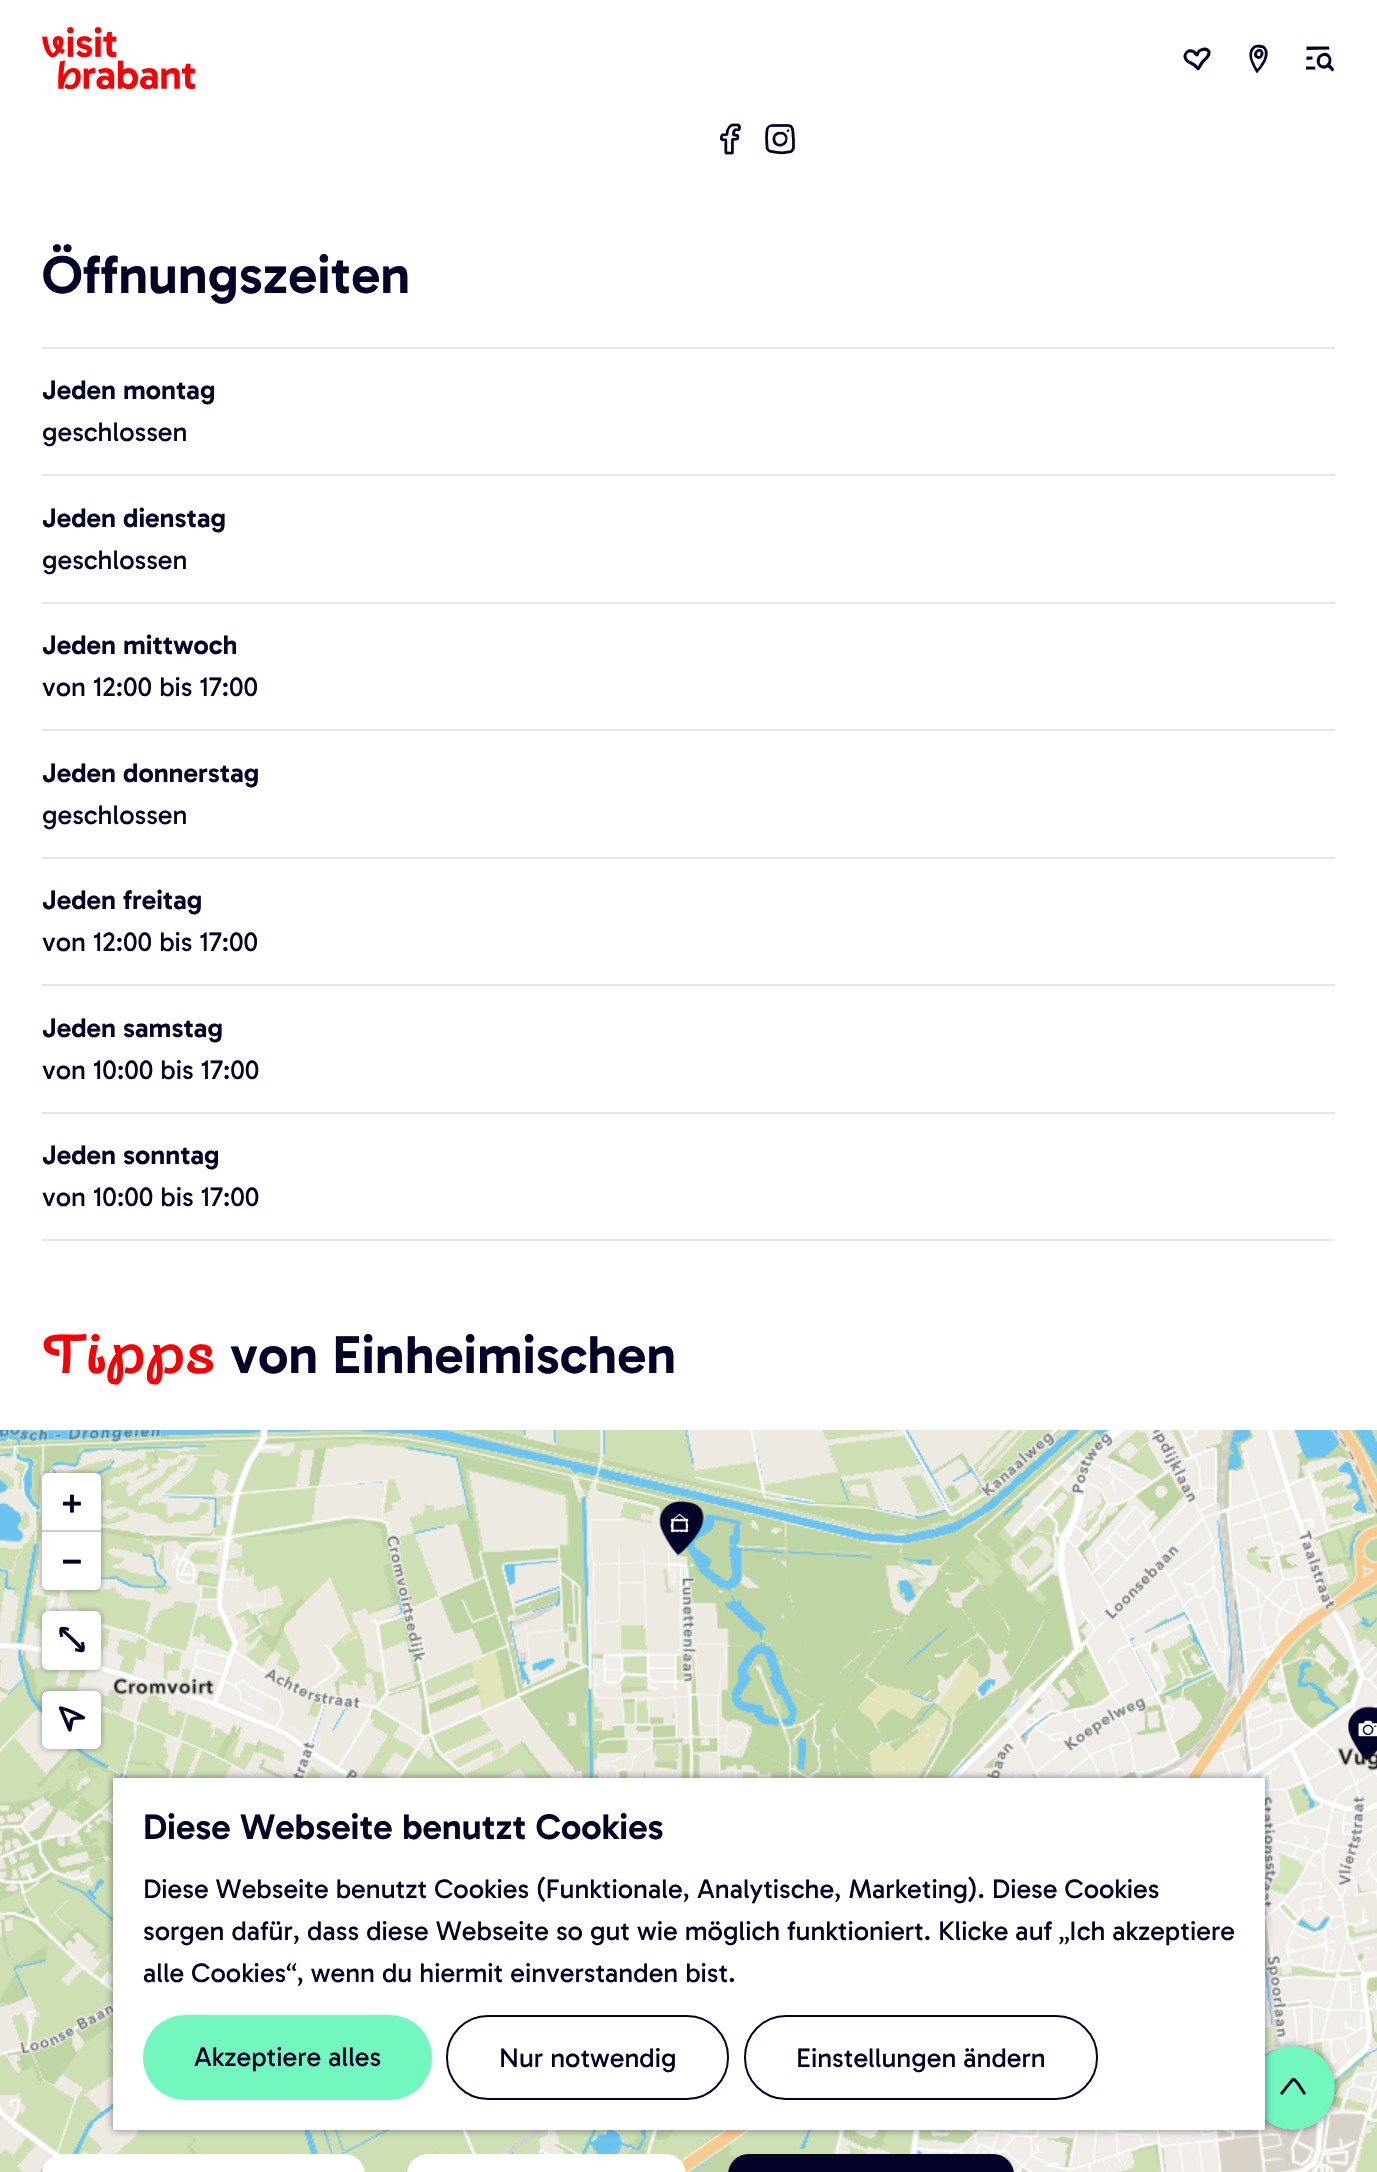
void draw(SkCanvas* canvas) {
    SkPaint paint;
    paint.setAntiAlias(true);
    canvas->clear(0xFFFFFFFF);
    canvas->drawImageRect(SkImages::DeferredFromEncodedData(SkData::MakeFromFileName("img1.png")), SkRect::MakeXYWH(42, 27, 153, 62), SkSamplingOptions());
    canvas->drawImageRect(SkImages::DeferredFromEncodedData(SkData::MakeFromFileName("img2.png")), SkRect::MakeXYWH(1183, 47, 28, 24), SkSamplingOptions());
    canvas->drawImageRect(SkImages::DeferredFromEncodedData(SkData::MakeFromFileName("img3.png")), SkRect::MakeXYWH(1249, 44, 19, 30), SkSamplingOptions());
    canvas->drawImageRect(SkImages::DeferredFromEncodedData(SkData::MakeFromFileName("img4.png")), SkRect::MakeXYWH(1306, 46, 28, 26), SkSamplingOptions());
    canvas->drawImageRect(SkImages::DeferredFromEncodedData(SkData::MakeFromFileName("img5.png")), SkRect::MakeXYWH(720, 123, 21, 32), SkSamplingOptions());
    canvas->drawImageRect(SkImages::DeferredFromEncodedData(SkData::MakeFromFileName("img6.png")), SkRect::MakeXYWH(765, 124, 30, 31), SkSamplingOptions());
    SkFont font1(fontMgr->matchFamilyStyle("Gabarito", SkFontStyle(600, SkFontStyle::kNormal_Width, SkFontStyle::kUpright_Slant)), 54);
    font1.setSubpixel(true);
    paint.setColor(0xFF03032A);
    canvas->drawString("Öffnungszeiten", 42, 293, font1, paint);
    paint.setColor(0xFFE6E6EA);
    canvas->drawRect(SkRect::MakeXYWH(42, 347, 1293, 2), paint);
    SkFont font2(fontMgr->matchFamilyStyle("Gabarito", SkFontStyle(600, SkFontStyle::kNormal_Width, SkFontStyle::kUpright_Slant)), 27);
    font2.setSubpixel(true);
    paint.setColor(0xFF03032A);
    canvas->drawString("Jeden montag", 42, 399, font2, paint);
    SkFont font3(fontMgr->matchFamilyStyle("Gabarito", SkFontStyle::Normal()), 27);
    font3.setSubpixel(true);
    canvas->drawString("geschlossen", 42, 441, font3, paint);
    paint.setColor(0xFFE6E6EA);
    canvas->drawRect(SkRect::MakeXYWH(42, 474, 1293, 2), paint);
    paint.setColor(0xFF03032A);
    canvas->drawString("Jeden dienstag", 42, 527, font2, paint);
    canvas->drawString("geschlossen", 42, 569, font3, paint);
    paint.setColor(0xFFE6E6EA);
    canvas->drawRect(SkRect::MakeXYWH(42, 602, 1293, 2), paint);
    paint.setColor(0xFF03032A);
    canvas->drawString("Jeden mittwoch", 42, 654, font2, paint);
    canvas->drawString("von 12:00 bis 17:00", 42, 696, font3, paint);
    paint.setColor(0xFFE6E6EA);
    canvas->drawRect(SkRect::MakeXYWH(42, 729, 1293, 2), paint);
    paint.setColor(0xFF03032A);
    canvas->drawString("Jeden donnerstag", 42, 782, font2, paint);
    canvas->drawString("geschlossen", 42, 824, font3, paint);
    paint.setColor(0xFFE6E6EA);
    canvas->drawRect(SkRect::MakeXYWH(42, 857, 1293, 2), paint);
    paint.setColor(0xFF03032A);
    canvas->drawString("Jeden freitag", 42, 909, font2, paint);
    canvas->drawString("von 12:00 bis 17:00", 42, 951, font3, paint);
    paint.setColor(0xFFE6E6EA);
    canvas->drawRect(SkRect::MakeXYWH(42, 984, 1293, 2), paint);
    paint.setColor(0xFF03032A);
    canvas->drawString("Jeden samstag", 42, 1037, font2, paint);
    canvas->drawString("von 10:00 bis 17:00", 42, 1079, font3, paint);
    paint.setColor(0xFFE6E6EA);
    canvas->drawRect(SkRect::MakeXYWH(42, 1112, 1293, 2), paint);
    canvas->drawRect(SkRect::MakeXYWH(42, 1239, 1293, 2), paint);
    paint.setColor(0xFF03032A);
    canvas->drawString("Jeden sonntag", 42, 1164, font2, paint);
    canvas->drawString("von 10:00 bis 17:00", 42, 1206, font3, paint);
    SkFont font4(fontMgr->matchFamilyStyle("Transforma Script", SkFontStyle(600, SkFontStyle::kNormal_Width, SkFontStyle::kUpright_Slant)), 54);
    font4.setSubpixel(true);
    paint.setColor(0xFFF80003);
    canvas->drawString("Tipps", 42, 1373, font4, paint);
    paint.setColor(0xFF03032A);
    canvas->drawString("von Einheimischen", 230, 1373, font1, paint);
    canvas->drawImageRect(SkImages::DeferredFromEncodedData(SkData::MakeFromFileName("img7.png")), SkRect::MakeXYWH(0, 1430, 1377, 742), SkSamplingOptions());
    canvas->drawImageRect(SkImages::DeferredFromEncodedData(SkData::MakeFromFileName("img8.png")), SkRect::MakeXYWH(659, 1501, 45, 54), SkSamplingOptions());
    canvas->drawImageRect(SkImages::DeferredFromEncodedData(SkData::MakeFromFileName("img9.png")), SkRect::MakeXYWH(670, 1513, 19, 20), SkSamplingOptions());
    canvas->drawImageRect(SkImages::DeferredFromEncodedData(SkData::MakeFromFileName("img10.png")), SkRect::MakeXYWH(1348, 1706, 29, 55), SkSamplingOptions());
    canvas->drawImageRect(SkImages::DeferredFromEncodedData(SkData::MakeFromFileName("img11.png")), SkRect::MakeXYWH(1358, 1720, 19, 17), SkSamplingOptions());
    paint.setColor(0x6603032A);
    paint.setMaskFilter(SkMaskFilter::MakeBlur(kNormal_SkBlurStyle, 3));
    canvas->drawRoundRect(SkRect::MakeXYWH(42, 1473, 59, 117), 6, 6, paint);
    paint.setMaskFilter(nullptr);
    paint.setColor(0xFFFFFFFF);
    canvas->drawPath(SkPathBuilder().moveTo(48, 1473).lineTo(95, 1473).cubicTo(98.5f, 1473, 101, 1475.5f, 101, 1479).lineTo(101, 1532).lineTo(42, 1532).lineTo(42, 1479).cubicTo(42, 1475.5f, 44.5f, 1473, 48, 1473).close().detach(), paint);
    paint.setColor(0xFFCCCCCC);
    canvas->drawRect(SkRect::MakeXYWH(42, 1530, 59, 2), paint);
    SkFont font5(fontMgr->matchFamilyStyle("DejaVu Sans Mono", SkFontStyle::Bold()), 33);
    font5.setSubpixel(true);
    paint.setColor(0xFF03032A);
    canvas->drawString("+", 62, 1514, font5, paint);
    paint.setColor(0xFFFFFFFF);
    canvas->drawPath(SkPathBuilder().moveTo(42, 1532).lineTo(101, 1532).lineTo(101, 1584).cubicTo(101, 1587.5f, 98.5f, 1590, 95, 1590).lineTo(48, 1590).cubicTo(44.5f, 1590, 42, 1587.5f, 42, 1584).close().detach(), paint);
    paint.setColor(0xFF03032A);
    canvas->drawString("−", 62, 1572, font5, paint);
    paint.setColor(0x6603032A);
    paint.setMaskFilter(SkMaskFilter::MakeBlur(kNormal_SkBlurStyle, 3));
    canvas->drawRoundRect(SkRect::MakeXYWH(42, 1611, 59, 59), 6, 6, paint);
    paint.setMaskFilter(nullptr);
    paint.setColor(0xFFFFFFFF);
    canvas->drawRoundRect(SkRect::MakeXYWH(42, 1611, 59, 59), 6, 6, paint);
    canvas->drawImageRect(SkImages::DeferredFromEncodedData(SkData::MakeFromFileName("img12.png")), SkRect::MakeXYWH(59, 1626, 26, 27), SkSamplingOptions());
    paint.setColor(0x6603032A);
    paint.setMaskFilter(SkMaskFilter::MakeBlur(kNormal_SkBlurStyle, 3));
    canvas->drawRoundRect(SkRect::MakeXYWH(42, 1691, 59, 58), 6, 6, paint);
    paint.setMaskFilter(nullptr);
    paint.setColor(0xFFFFFFFF);
    canvas->drawRoundRect(SkRect::MakeXYWH(42, 1691, 59, 58), 6, 6, paint);
    canvas->drawImageRect(SkImages::DeferredFromEncodedData(SkData::MakeFromFileName("img13.png")), SkRect::MakeXYWH(58, 1706, 28, 26), SkSamplingOptions());
    canvas->drawRoundRect(SkRect::MakeXYWH(42, 2154, 323, 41), 23, 23, paint);
    canvas->drawRoundRect(SkRect::MakeXYWH(407, 2154, 279, 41), 23, 23, paint);
    paint.setColor(0xFF03032A);
    canvas->drawRoundRect(SkRect::MakeXYWH(728, 2154, 286, 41), 23, 23, paint);
    paint.setColor(0x8003032A);
    paint.setMaskFilter(SkMaskFilter::MakeBlur(kNormal_SkBlurStyle, 4));
    canvas->drawRoundRect(SkRect::MakeXYWH(1251, 2046, 84, 84), 42, 42, paint);
    paint.setMaskFilter(nullptr);
    paint.setColor(0xFF72F7BE);
    canvas->drawCircle(1293, 2088, 42, paint);
    paint.setColor(0x8003032A);
    paint.setMaskFilter(SkMaskFilter::MakeBlur(kNormal_SkBlurStyle, 4));
    canvas->drawRect(SkRect::MakeXYWH(113, 1778, 1152, 352), paint);
    paint.setMaskFilter(nullptr);
    paint.setColor(0xFFFFFFFF);
    canvas->drawRect(SkRect::MakeXYWH(113, 1778, 1152, 352), paint);
    SkFont font6(fontMgr->matchFamilyStyle("Gabarito", SkFontStyle(600, SkFontStyle::kNormal_Width, SkFontStyle::kUpright_Slant)), 36);
    font6.setSubpixel(true);
    paint.setColor(0xFF03032A);
    canvas->drawString("Diese Webseite benutzt Cookies", 143, 1839, font6, paint);
    canvas->drawString("Diese Webseite benutzt Cookies (Funktionale, Analytische, Marketing). Diese Cookies", 143, 1898, font3, paint);
    canvas->drawString("sorgen dafür, dass diese Webseite so gut wie möglich funktioniert. Klicke auf „Ich akzeptiere", 143, 1940, font3, paint);
    canvas->drawString("alle Cookies“, wenn du hiermit einverstanden bist.", 143, 1982, font3, paint);
    paint.setColor(0xFF72F7BE);
    canvas->drawRoundRect(SkRect::MakeXYWH(143, 2015, 289, 85), 42, 42, paint);
    paint.setColor(0xFF03032A);
    canvas->drawString("Akzeptiere alles", 194, 2066, font3, paint);
    paint.setStyle(SkPaint::kStroke_Style);
    paint.setStrokeWidth(2);
    canvas->drawRoundRect(SkRect::MakeXYWH(447, 2016, 281, 83), 41, 41, paint);
    paint.setStyle(SkPaint::kFill_Style);
    canvas->drawString("Nur notwendig", 499, 2067, font3, paint);
    paint.setStyle(SkPaint::kStroke_Style);
    canvas->drawRoundRect(SkRect::MakeXYWH(745, 2016, 352, 83), 41, 41, paint);
    paint.setStyle(SkPaint::kFill_Style);
    canvas->drawString("Einstellungen ändern", 796, 2067, font3, paint);
    canvas->drawImageRect(SkImages::DeferredFromEncodedData(SkData::MakeFromFileName("img14.png")), SkRect::MakeXYWH(1280, 2077, 26, 18), SkSamplingOptions());
}
